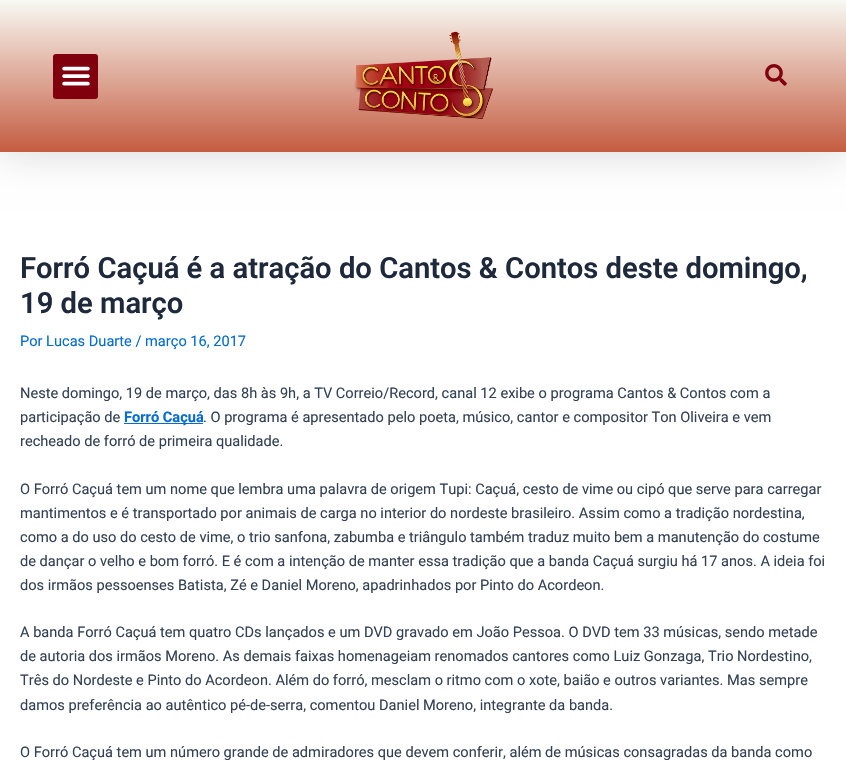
void draw(SkCanvas* canvas) {
    SkPaint paint;
    paint.setAntiAlias(true);
    canvas->clear(0xFFFFFFFF);
    paint.setColor(0x29000000);
    paint.setMaskFilter(SkMaskFilter::MakeBlur(kNormal_SkBlurStyle, 20));
    canvas->drawRect(SkRect::MakeXYWH(0, 0, 846, 152), paint);
    paint.setMaskFilter(nullptr);
    {
        const SkColor colors[] = {0xFFF8F9F3, 0xFFC45C41};
        const float stops[] = {0, 1};
        const SkPoint ends[] = {{423, 0}, {423, 152}};
        paint.setShader(SkGradientShader::MakeLinear(ends, colors, stops, 2, SkTileMode::kClamp));
        paint.setAlpha(255);
    }
    canvas->drawRect(SkRect::MakeXYWH(0, 0, 846, 152), paint);
    paint.setShader(nullptr);
    paint.setColor(0xFF80000E);
    canvas->drawRoundRect(SkRect::MakeXYWH(53, 54, 45, 45), 3, 3, paint);
    canvas->drawImageRect(SkImages::DeferredFromEncodedData(SkData::MakeFromFileName("img1.png")), SkRect::MakeXYWH(62, 66, 28, 20), SkSamplingOptions());
    canvas->drawImageRect(SkImages::DeferredFromEncodedData(SkData::MakeFromFileName("img2.png")), SkRect::MakeXYWH(354, 31, 139, 88), SkSamplingOptions());
    canvas->drawImageRect(SkImages::DeferredFromEncodedData(SkData::MakeFromFileName("img3.png")), SkRect::MakeXYWH(765, 64, 22, 22), SkSamplingOptions());
    SkFont font1(fontMgr->matchFamilyStyle("Roboto", SkFontStyle(600, SkFontStyle::kNormal_Width, SkFontStyle::kUpright_Slant)), 29.2f);
    font1.setSubpixel(true);
    paint.setColor(0xFF1E293B);
    canvas->drawString("Forró Caçuá é a atração do Cantos & Contos deste domingo,", 20, 278, font1, paint);
    canvas->drawString("19 de março", 20, 313, font1, paint);
    SkFont font2(fontMgr->matchFamilyStyle("Roboto", SkFontStyle::Normal()), 14.6f);
    font2.setSubpixel(true);
    paint.setColor(0xFF046BD2);
    canvas->drawString("Por Lucas Duarte / março 16, 2017", 20, 346, font2, paint);
    paint.setColor(0xFF334155);
    canvas->drawString("Neste domingo, 19 de março, das 8h às 9h, a TV Correio/Record, canal 12 exibe o programa Cantos & Contos com a", 20, 398, font2, paint);
    canvas->drawString("participação de", 20, 422, font2, paint);
    paint.setColor(0xFF046BD2);
    canvas->drawRect(SkRect::MakeXYWH(124, 423, 79, 1), paint);
    SkFont font3(fontMgr->matchFamilyStyle("Roboto", SkFontStyle::Bold()), 14.6f);
    font3.setSubpixel(true);
    canvas->drawString("Forró Caçuá", 124, 422, font3, paint);
    paint.setColor(0xFF334155);
    canvas->drawString(". O programa é apresentado pelo poeta, músico, cantor e compositor Ton Oliveira e vem", 203, 422, font2, paint);
    canvas->drawString("recheado de forró de primeira qualidade.", 20, 446, font2, paint);
    canvas->drawString("O Forró Caçuá tem um nome que lembra uma palavra de origem Tupi: Caçuá, cesto de vime ou cipó que serve para carregar", 20, 494, font2, paint);
    canvas->drawString("mantimentos e é transportado por animais de carga no interior do nordeste brasileiro. Assim como a tradição nordestina,", 20, 518, font2, paint);
    canvas->drawString("como a do uso do cesto de vime, o trio sanfona, zabumba e triângulo também traduz muito bem a manutenção do costume", 20, 542, font2, paint);
    canvas->drawString("de dançar o velho e bom forró. E é com a intenção de manter essa tradição que a banda Caçuá surgiu há 17 anos. A ideia foi", 20, 566, font2, paint);
    canvas->drawString("dos irmãos pessoenses Batista, Zé e Daniel Moreno, apadrinhados por Pinto do Acordeon.", 20, 590, font2, paint);
    canvas->drawString("A banda Forró Caçuá tem quatro CDs lançados e um DVD gravado em João Pessoa. O DVD tem 33 músicas, sendo metade", 20, 637, font2, paint);
    canvas->drawString("de autoria dos irmãos Moreno. As demais faixas homenageiam renomados cantores como Luiz Gonzaga, Trio Nordestino,", 20, 661, font2, paint);
    canvas->drawString("Três do Nordeste e Pinto do Acordeon. Além do forró, mesclam o ritmo com o xote, baião e outros variantes. Mas sempre", 20, 685, font2, paint);
    canvas->drawString("damos preferência ao autêntico pé-de-serra, comentou Daniel Moreno, integrante da banda.", 20, 710, font2, paint);
    canvas->drawString("O Forró Caçuá tem um número grande de admiradores que devem conferir, além de músicas consagradas da banda como", 20, 757, font2, paint);
}
